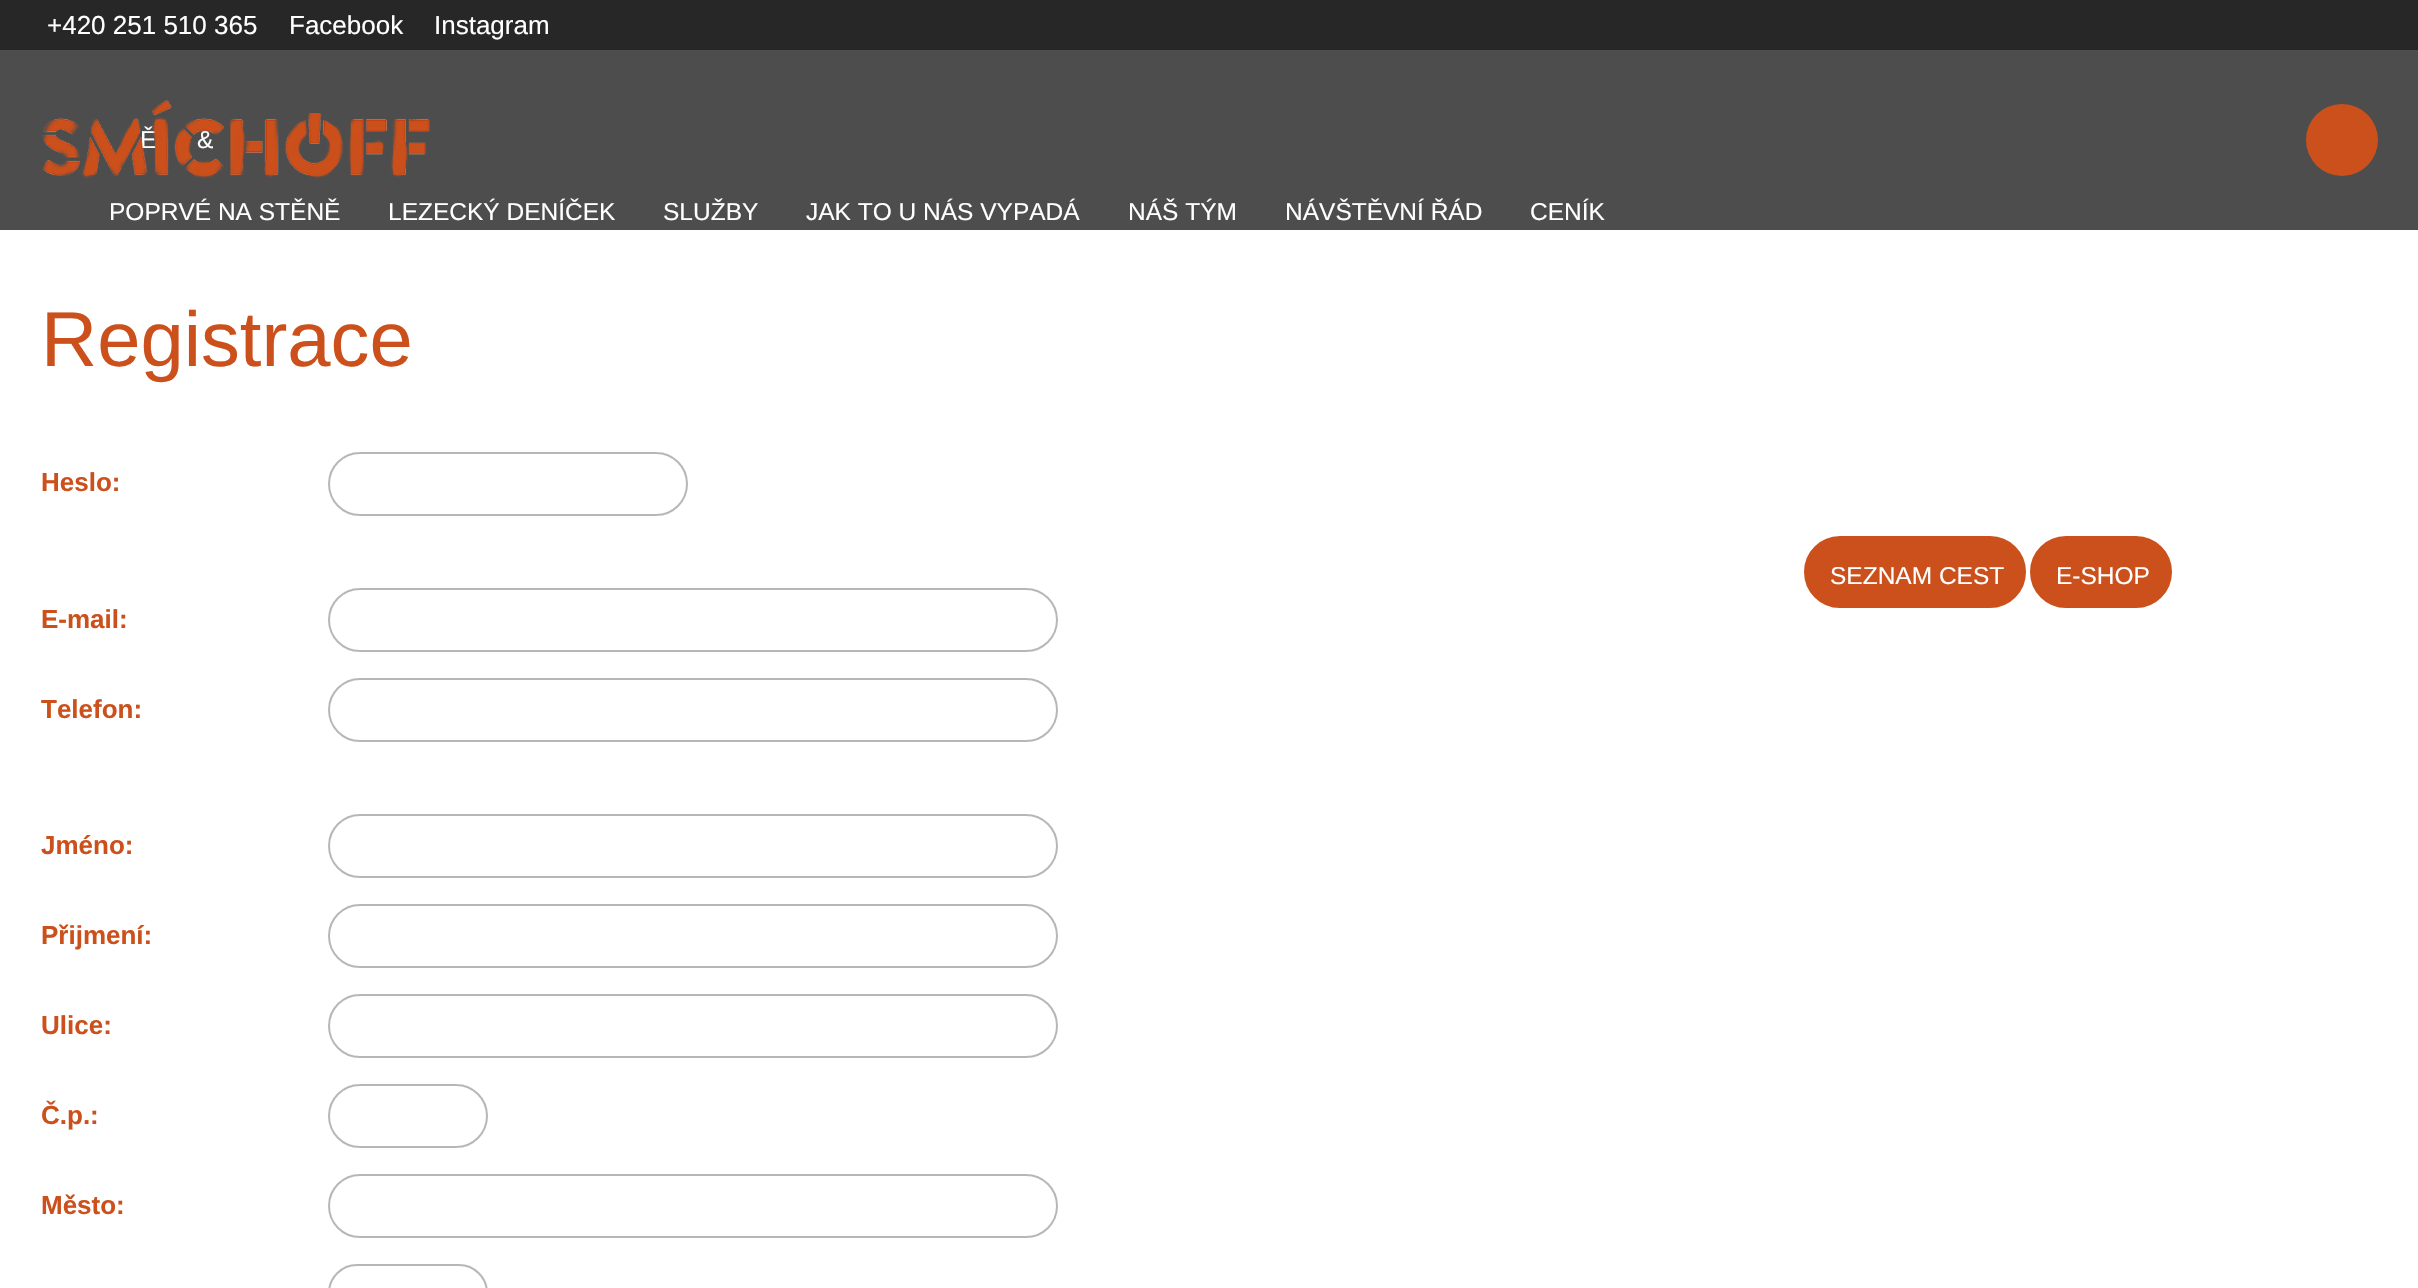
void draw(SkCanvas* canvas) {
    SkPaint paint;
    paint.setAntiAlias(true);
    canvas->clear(0xFFFFFFFF);
    paint.setColor(0xFF4D4D4D);
    canvas->drawRect(SkRect::MakeXYWH(0, 50, 2418, 180), paint);
    paint.setColor(0xFF272727);
    canvas->drawRect(SkRect::MakeXYWH(0, 0, 2418, 50), paint);
    SkFont font1(fontMgr->matchFamilyStyle("Liberation Sans", SkFontStyle::Normal()), 26);
    font1.setSubpixel(true);
    paint.setColor(0xFFFFFFFF);
    canvas->drawString("+420 251 510 365", 47, 34, font1, paint);
    canvas->drawString("Facebook", 289, 34, font1, paint);
    canvas->drawString("Instagram", 434, 34, font1, paint);
    SkFont font2(fontMgr->matchFamilyStyle("Liberation Sans", SkFontStyle::Normal()), 24.5f);
    font2.setSubpixel(true);
    canvas->drawString("Ě", 140, 148, font2, paint);
    canvas->drawString("&", 197, 148, font2, paint);
    canvas->drawImageRect(SkImages::DeferredFromEncodedData(SkData::MakeFromFileName("img1.png")), SkRect::MakeXYWH(42, 100, 388, 79), SkSamplingOptions());
    paint.setColor(0xFFCB501B);
    canvas->drawCircle(2342, 140, 36, paint);
    paint.setColor(0xFFFFFFFF);
    canvas->drawString("POPRVÉ NA STĚNĚ", 109, 220, font2, paint);
    canvas->drawString("LEZECKÝ DENÍČEK", 388, 220, font2, paint);
    canvas->drawString("SLUŽBY", 663, 220, font2, paint);
    canvas->drawString("JAK TO U NÁS VYPADÁ", 806, 220, font2, paint);
    canvas->drawString("NÁŠ TÝM", 1128, 220, font2, paint);
    canvas->drawString("NÁVŠTĚVNÍ ŘÁD", 1285, 220, font2, paint);
    canvas->drawString("CENÍK", 1530, 220, font2, paint);
    paint.setColor(0xFFCB501B);
    canvas->drawRoundRect(SkRect::MakeXYWH(1805, 537, 220, 70), 35, 35, paint);
    paint.setStyle(SkPaint::kStroke_Style);
    paint.setStrokeWidth(2);
    canvas->drawRoundRect(SkRect::MakeXYWH(1805, 537, 220, 70), 35, 35, paint);
    paint.setStyle(SkPaint::kFill_Style);
    paint.setColor(0xFFFFFFFF);
    canvas->drawString("SEZNAM CEST", 1830, 584, font2, paint);
    paint.setColor(0xFFCB501B);
    canvas->drawRoundRect(SkRect::MakeXYWH(2031, 537, 140, 70), 35, 35, paint);
    paint.setStyle(SkPaint::kStroke_Style);
    canvas->drawRoundRect(SkRect::MakeXYWH(2031, 537, 140, 70), 35, 35, paint);
    paint.setStyle(SkPaint::kFill_Style);
    paint.setColor(0xFFFFFFFF);
    canvas->drawString("E-SHOP", 2056, 584, font2, paint);
    SkFont font3(fontMgr->matchFamilyStyle("Liberation Sans", SkFontStyle::Normal()), 77.75f);
    font3.setSubpixel(true);
    paint.setColor(0xFFCB501B);
    canvas->drawString("Registrace", 41, 366, font3, paint);
    SkFont font4(fontMgr->matchFamilyStyle("Liberation Sans", SkFontStyle::Bold()), 26);
    font4.setSubpixel(true);
    canvas->drawString("Heslo:", 41, 491, font4, paint);
    paint.setStyle(SkPaint::kStroke_Style);
    paint.setColor(0xFFB7B7B7);
    canvas->drawRoundRect(SkRect::MakeXYWH(329, 453, 358, 62), 31, 31, paint);
    paint.setStyle(SkPaint::kFill_Style);
    paint.setColor(0xFFCB501B);
    canvas->drawString("E-mail:", 41, 628, font4, paint);
    paint.setStyle(SkPaint::kStroke_Style);
    paint.setColor(0xFFB7B7B7);
    canvas->drawRoundRect(SkRect::MakeXYWH(329, 589, 728, 62), 31, 31, paint);
    paint.setStyle(SkPaint::kFill_Style);
    paint.setColor(0xFFCB501B);
    canvas->drawString("Telefon:", 41, 718, font4, paint);
    paint.setStyle(SkPaint::kStroke_Style);
    paint.setColor(0xFFB7B7B7);
    canvas->drawRoundRect(SkRect::MakeXYWH(329, 679, 728, 62), 31, 31, paint);
    paint.setStyle(SkPaint::kFill_Style);
    paint.setColor(0xFFCB501B);
    canvas->drawString("Jméno:", 41, 854, font4, paint);
    paint.setStyle(SkPaint::kStroke_Style);
    paint.setColor(0xFFB7B7B7);
    canvas->drawRoundRect(SkRect::MakeXYWH(329, 815, 728, 62), 31, 31, paint);
    paint.setStyle(SkPaint::kFill_Style);
    paint.setColor(0xFFCB501B);
    canvas->drawString("Přijmení:", 41, 944, font4, paint);
    paint.setStyle(SkPaint::kStroke_Style);
    paint.setColor(0xFFB7B7B7);
    canvas->drawRoundRect(SkRect::MakeXYWH(329, 905, 728, 62), 31, 31, paint);
    paint.setStyle(SkPaint::kFill_Style);
    paint.setColor(0xFFCB501B);
    canvas->drawString("Ulice:", 41, 1034, font4, paint);
    paint.setStyle(SkPaint::kStroke_Style);
    paint.setColor(0xFFB7B7B7);
    canvas->drawRoundRect(SkRect::MakeXYWH(329, 995, 728, 62), 31, 31, paint);
    paint.setStyle(SkPaint::kFill_Style);
    paint.setColor(0xFFCB501B);
    canvas->drawString("Č.p.:", 41, 1124, font4, paint);
    paint.setStyle(SkPaint::kStroke_Style);
    paint.setColor(0xFFB7B7B7);
    canvas->drawRoundRect(SkRect::MakeXYWH(329, 1085, 158, 62), 31, 31, paint);
    paint.setStyle(SkPaint::kFill_Style);
    paint.setColor(0xFFCB501B);
    canvas->drawString("Město:", 41, 1214, font4, paint);
    paint.setStyle(SkPaint::kStroke_Style);
    paint.setColor(0xFFB7B7B7);
    canvas->drawRoundRect(SkRect::MakeXYWH(329, 1175, 728, 62), 31, 31, paint);
    canvas->drawRoundRect(SkRect::MakeXYWH(329, 1265, 158, 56), 31, 31, paint);
}
